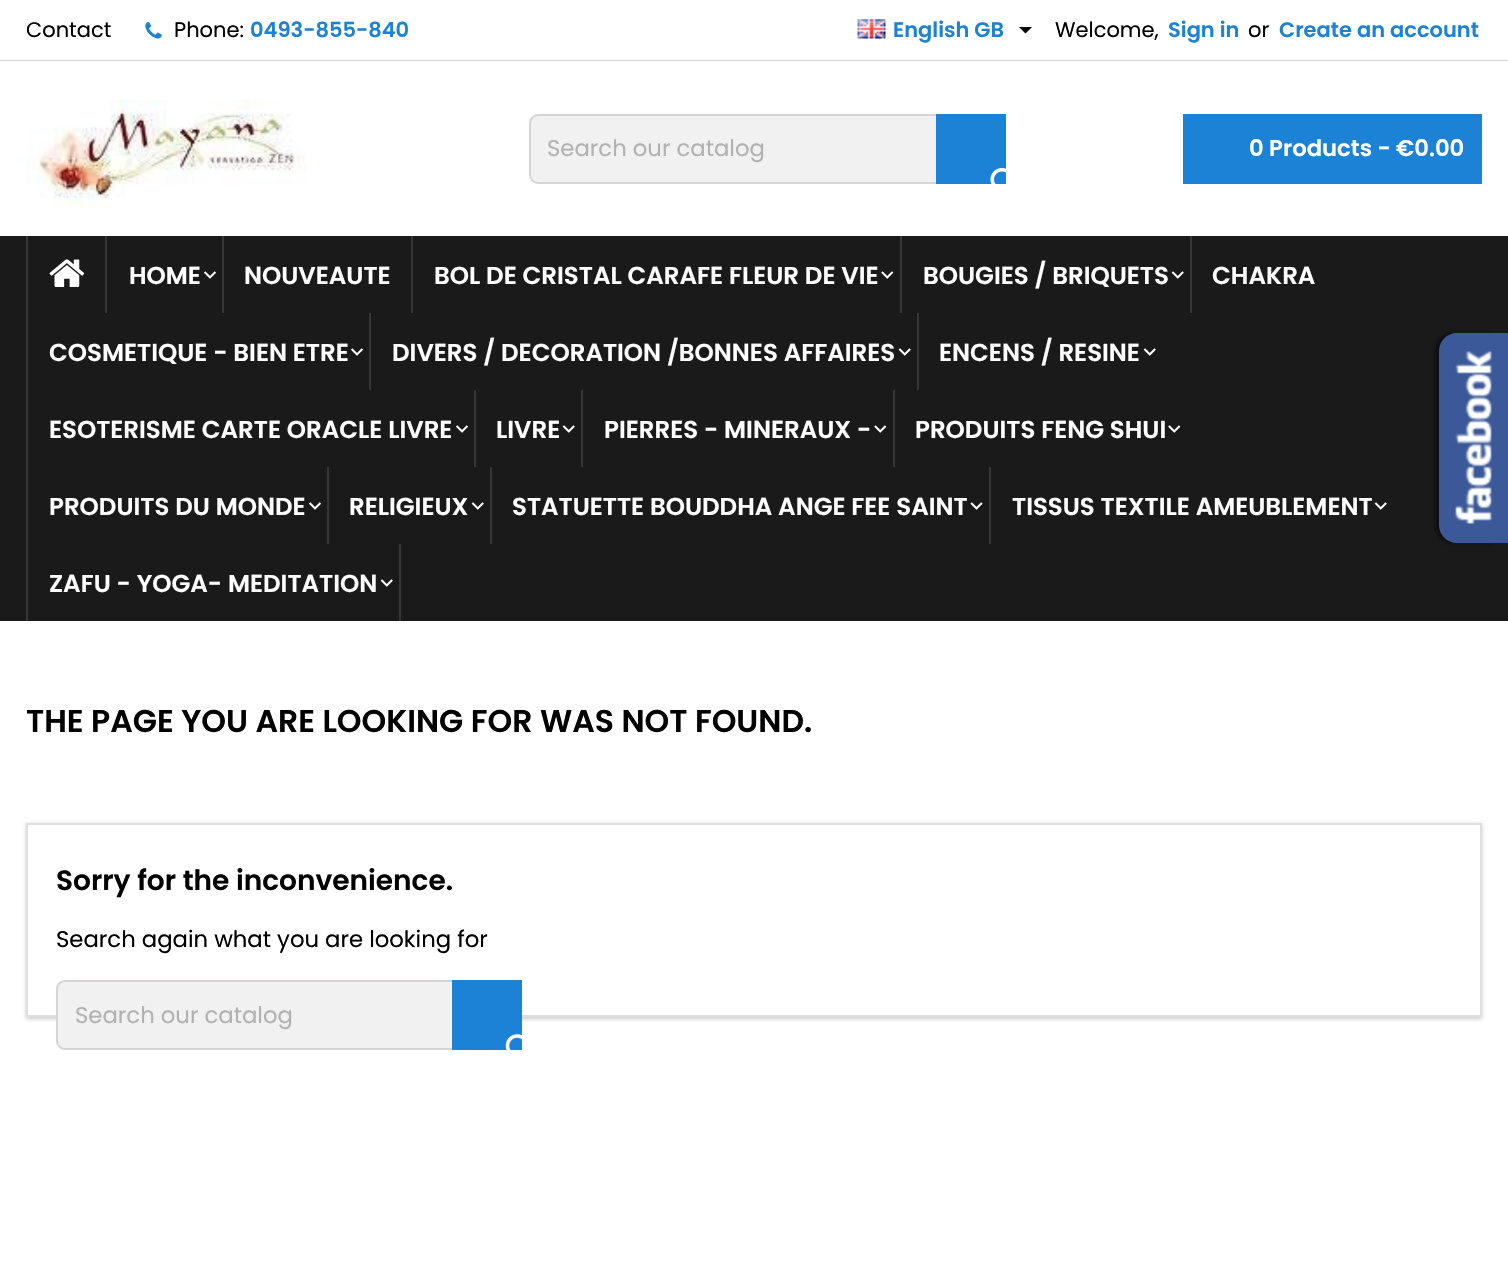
void draw(SkCanvas* canvas) {
    SkPaint paint;
    paint.setAntiAlias(true);
    canvas->clear(0xFFFFFFFF);
    paint.setColor(0xFFD6D4D4);
    canvas->drawRect(SkRect::MakeXYWH(0, 60, 1508, 1), paint);
    SkFont font1(fontMgr->matchFamilyStyle("Poppins", SkFontStyle::Normal()), 21);
    font1.setSubpixel(true);
    paint.setColor(0xFF000000);
    canvas->drawString("Contact", 26, 37, font1, paint);
    canvas->drawImageRect(SkImages::DeferredFromEncodedData(SkData::MakeFromFileName("img1.png")), SkRect::MakeXYWH(145, 22, 17, 17), SkSamplingOptions());
    canvas->drawString("Phone:", 174, 37, font1, paint);
    SkFont font2(fontMgr->matchFamilyStyle("Poppins", SkFontStyle(600, SkFontStyle::kNormal_Width, SkFontStyle::kUpright_Slant)), 21);
    font2.setSubpixel(true);
    paint.setColor(0xFF1B82D6);
    canvas->drawString("0493-855-840", 250, 37, font2, paint);
    canvas->drawImageRect(SkImages::DeferredFromEncodedData(SkData::MakeFromFileName("img2.png")), SkRect::MakeXYWH(857, 19, 29, 20), SkSamplingOptions());
    canvas->drawString("English GB", 893, 37, font2, paint);
    paint.setColor(0xFF000000);
    canvas->drawPath(SkPathBuilder().moveTo(1019, 27).lineTo(1032, 27).lineTo(1025.5f, 33.5f).close().detach(), paint);
    canvas->drawString("Welcome,", 1055, 37, font1, paint);
    paint.setColor(0xFF1B82D6);
    canvas->drawString("Sign in", 1168, 37, font2, paint);
    paint.setColor(0xFF000000);
    canvas->drawString("or", 1248, 37, font1, paint);
    paint.setColor(0xFF1B82D6);
    canvas->drawString("Create an account", 1279, 37, font2, paint);
    canvas->drawImageRect(SkImages::DeferredFromEncodedData(SkData::MakeFromFileName("img3.png")), SkRect::MakeXYWH(26, 99, 280, 109), SkSamplingOptions());
    paint.setColor(0xFFF1F1F1);
    canvas->drawRoundRect(SkRect::MakeXYWH(530, 115, 475, 68), 8, 8, paint);
    paint.setStyle(SkPaint::kStroke_Style);
    paint.setStrokeWidth(2);
    paint.setColor(0xFFD6D4D4);
    canvas->drawRoundRect(SkRect::MakeXYWH(530, 115, 475, 68), 8, 8, paint);
    SkFont font3(fontMgr->matchFamilyStyle("Poppins", SkFontStyle::Normal()), 22.75f);
    font3.setSubpixel(true);
    paint.setStyle(SkPaint::kFill_Style);
    paint.setColor(0xFFB1B1B1);
    canvas->drawString("Search our catalog", 547, 156, font3, paint);
    paint.setColor(0xFF1B82D6);
    canvas->drawRect(SkRect::MakeXYWH(936, 114, 70, 70), paint);
    canvas->drawImageRect(SkImages::DeferredFromEncodedData(SkData::MakeFromFileName("img4.png")), SkRect::MakeXYWH(990, 168, 16, 16), SkSamplingOptions());
    canvas->drawRect(SkRect::MakeXYWH(1183, 114, 299, 70), paint);
    SkFont font4(fontMgr->matchFamilyStyle("Poppins", SkFontStyle(600, SkFontStyle::kNormal_Width, SkFontStyle::kUpright_Slant)), 22.75f);
    font4.setSubpixel(true);
    paint.setColor(0xFFFFFFFF);
    canvas->drawString("0 Products - €0.00", 1249, 156, font4, paint);
    paint.setColor(0xFF1B1A1B);
    canvas->drawRect(SkRect::MakeXYWH(0, 236, 1508, 385), paint);
    paint.setColor(0xFF363636);
    canvas->drawRect(SkRect::MakeXYWH(26, 236, 2, 385), paint);
    canvas->drawImageRect(SkImages::DeferredFromEncodedData(SkData::MakeFromFileName("img5.png")), SkRect::MakeXYWH(49, 259, 36, 28), SkSamplingOptions());
    canvas->drawRect(SkRect::MakeXYWH(105, 236, 2, 77), paint);
    SkFont font5(fontMgr->matchFamilyStyle("Poppins", SkFontStyle(600, SkFontStyle::kNormal_Width, SkFontStyle::kUpright_Slant)), 24.5f);
    font5.setSubpixel(true);
    paint.setColor(0xFFFFFFFF);
    canvas->drawString("HOME", 129, 284, font5, paint);
    canvas->drawImageRect(SkImages::DeferredFromEncodedData(SkData::MakeFromFileName("img6.png")), SkRect::MakeXYWH(204, 271, 12, 8), SkSamplingOptions());
    paint.setColor(0xFF363636);
    canvas->drawRect(SkRect::MakeXYWH(222, 236, 2, 77), paint);
    paint.setColor(0xFFFFFFFF);
    canvas->drawString("NOUVEAUTE", 244, 284, font5, paint);
    paint.setColor(0xFF363636);
    canvas->drawRect(SkRect::MakeXYWH(411, 236, 2, 77), paint);
    paint.setColor(0xFFFFFFFF);
    canvas->drawString("BOL DE CRISTAL CARAFE FLEUR DE VIE", 434, 284, font5, paint);
    canvas->drawImageRect(SkImages::DeferredFromEncodedData(SkData::MakeFromFileName("img7.png")), SkRect::MakeXYWH(881, 271, 13, 8), SkSamplingOptions());
    paint.setColor(0xFF363636);
    canvas->drawRect(SkRect::MakeXYWH(900, 236, 2, 77), paint);
    paint.setColor(0xFFFFFFFF);
    canvas->drawString("BOUGIES / BRIQUETS", 923, 284, font5, paint);
    canvas->drawImageRect(SkImages::DeferredFromEncodedData(SkData::MakeFromFileName("img8.png")), SkRect::MakeXYWH(1171, 271, 13, 8), SkSamplingOptions());
    paint.setColor(0xFF363636);
    canvas->drawRect(SkRect::MakeXYWH(1190, 236, 2, 77), paint);
    paint.setColor(0xFFFFFFFF);
    canvas->drawString("CHAKRA", 1212, 284, font5, paint);
    canvas->drawString("COSMETIQUE - BIEN ETRE", 49, 361, font5, paint);
    canvas->drawImageRect(SkImages::DeferredFromEncodedData(SkData::MakeFromFileName("img6.png")), SkRect::MakeXYWH(351, 348, 12, 8), SkSamplingOptions());
    paint.setColor(0xFF363636);
    canvas->drawRect(SkRect::MakeXYWH(369, 313, 2, 77), paint);
    paint.setColor(0xFFFFFFFF);
    canvas->drawString("DIVERS / DECORATION /BONNES AFFAIRES", 392, 361, font5, paint);
    canvas->drawImageRect(SkImages::DeferredFromEncodedData(SkData::MakeFromFileName("img8.png")), SkRect::MakeXYWH(898, 348, 13, 8), SkSamplingOptions());
    paint.setColor(0xFF363636);
    canvas->drawRect(SkRect::MakeXYWH(917, 313, 2, 77), paint);
    paint.setColor(0xFFFFFFFF);
    canvas->drawString("ENCENS / RESINE", 939, 361, font5, paint);
    canvas->drawImageRect(SkImages::DeferredFromEncodedData(SkData::MakeFromFileName("img8.png")), SkRect::MakeXYWH(1143, 348, 13, 8), SkSamplingOptions());
    canvas->drawString("ESOTERISME CARTE ORACLE LIVRE", 49, 438, font5, paint);
    canvas->drawImageRect(SkImages::DeferredFromEncodedData(SkData::MakeFromFileName("img6.png")), SkRect::MakeXYWH(456, 425, 12, 8), SkSamplingOptions());
    paint.setColor(0xFF363636);
    canvas->drawRect(SkRect::MakeXYWH(474, 390, 2, 77), paint);
    paint.setColor(0xFFFFFFFF);
    canvas->drawString("LIVRE", 496, 438, font5, paint);
    canvas->drawImageRect(SkImages::DeferredFromEncodedData(SkData::MakeFromFileName("img8.png")), SkRect::MakeXYWH(562, 425, 13, 8), SkSamplingOptions());
    paint.setColor(0xFF363636);
    canvas->drawRect(SkRect::MakeXYWH(581, 390, 2, 77), paint);
    paint.setColor(0xFFFFFFFF);
    canvas->drawString("PIERRES - MINERAUX -", 604, 438, font5, paint);
    canvas->drawImageRect(SkImages::DeferredFromEncodedData(SkData::MakeFromFileName("img7.png")), SkRect::MakeXYWH(874, 425, 13, 8), SkSamplingOptions());
    paint.setColor(0xFF363636);
    canvas->drawRect(SkRect::MakeXYWH(893, 390, 2, 77), paint);
    paint.setColor(0xFFFFFFFF);
    canvas->drawString("PRODUITS FENG SHUI", 915, 438, font5, paint);
    canvas->drawImageRect(SkImages::DeferredFromEncodedData(SkData::MakeFromFileName("img7.png")), SkRect::MakeXYWH(1168, 425, 13, 8), SkSamplingOptions());
    canvas->drawString("PRODUITS DU MONDE", 49, 515, font5, paint);
    canvas->drawImageRect(SkImages::DeferredFromEncodedData(SkData::MakeFromFileName("img6.png")), SkRect::MakeXYWH(309, 502, 12, 8), SkSamplingOptions());
    paint.setColor(0xFF363636);
    canvas->drawRect(SkRect::MakeXYWH(327, 467, 2, 77), paint);
    paint.setColor(0xFFFFFFFF);
    canvas->drawString("RELIGIEUX", 349, 515, font5, paint);
    canvas->drawImageRect(SkImages::DeferredFromEncodedData(SkData::MakeFromFileName("img8.png")), SkRect::MakeXYWH(471, 502, 13, 8), SkSamplingOptions());
    paint.setColor(0xFF363636);
    canvas->drawRect(SkRect::MakeXYWH(490, 467, 2, 77), paint);
    paint.setColor(0xFFFFFFFF);
    canvas->drawString("STATUETTE BOUDDHA ANGE FEE SAINT", 512, 515, font5, paint);
    canvas->drawImageRect(SkImages::DeferredFromEncodedData(SkData::MakeFromFileName("img9.png")), SkRect::MakeXYWH(970, 502, 13, 8), SkSamplingOptions());
    paint.setColor(0xFF363636);
    canvas->drawRect(SkRect::MakeXYWH(989, 467, 2, 77), paint);
    paint.setColor(0xFFFFFFFF);
    canvas->drawString("TISSUS TEXTILE AMEUBLEMENT", 1012, 515, font5, paint);
    canvas->drawImageRect(SkImages::DeferredFromEncodedData(SkData::MakeFromFileName("img8.png")), SkRect::MakeXYWH(1374, 502, 13, 8), SkSamplingOptions());
    paint.setColor(0xFF363636);
    canvas->drawRect(SkRect::MakeXYWH(399, 544, 2, 77), paint);
    paint.setColor(0xFFFFFFFF);
    canvas->drawString("ZAFU - YOGA- MEDITATION", 49, 592, font5, paint);
    canvas->drawImageRect(SkImages::DeferredFromEncodedData(SkData::MakeFromFileName("img8.png")), SkRect::MakeXYWH(380, 579, 13, 8), SkSamplingOptions());
    paint.setColor(0x80000000);
    paint.setMaskFilter(SkMaskFilter::MakeBlur(kNormal_SkBlurStyle, 2));
    canvas->drawRoundRect(SkRect::MakeXYWH(1435, 333, 70, 210), 18, 18, paint);
    paint.setMaskFilter(nullptr);
    paint.setColor(0xFF3B5998);
    canvas->drawPath(SkPathBuilder().moveTo(1457, 333).lineTo(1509, 333).lineTo(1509, 543).lineTo(1457, 543).cubicTo(1447, 543, 1439, 535, 1439, 525).lineTo(1439, 351).cubicTo(1439, 341, 1447, 333, 1457, 333).close().detach(), paint);
    canvas->drawImageRect(SkImages::DeferredFromEncodedData(SkData::MakeFromFileName("img10.png")), SkRect::MakeXYWH(1455, 351, 37, 173), SkSamplingOptions());
    SkFont font6(fontMgr->matchFamilyStyle("Poppins", SkFontStyle(600, SkFontStyle::kNormal_Width, SkFontStyle::kUpright_Slant)), 31.5f);
    font6.setSubpixel(true);
    paint.setColor(0xFF000000);
    canvas->drawString("THE PAGE YOU ARE LOOKING FOR WAS NOT FOUND.", 26, 732, font6, paint);
    paint.setColor(0x33000000);
    paint.setMaskFilter(SkMaskFilter::MakeBlur(kNormal_SkBlurStyle, 2));
    canvas->drawRect(SkRect::MakeXYWH(26, 824, 1456, 195), paint);
    paint.setMaskFilter(nullptr);
    paint.setColor(0xFFFFFFFF);
    canvas->drawRect(SkRect::MakeXYWH(27, 824, 1454, 192), paint);
    paint.setStyle(SkPaint::kStroke_Style);
    paint.setColor(0xFFDFDFDF);
    canvas->drawRect(SkRect::MakeXYWH(27, 824, 1454, 192), paint);
    SkFont font7(fontMgr->matchFamilyStyle("Poppins", SkFontStyle(600, SkFontStyle::kNormal_Width, SkFontStyle::kUpright_Slant)), 28);
    font7.setSubpixel(true);
    paint.setStyle(SkPaint::kFill_Style);
    paint.setColor(0xFF000000);
    canvas->drawString("Sorry for the inconvenience.", 56, 890, font7, paint);
    canvas->drawString("Search again what you are looking for", 56, 947, font3, paint);
    paint.setColor(0xFFF1F1F1);
    canvas->drawRoundRect(SkRect::MakeXYWH(57, 981, 464, 68), 8, 8, paint);
    paint.setStyle(SkPaint::kStroke_Style);
    paint.setColor(0xFFD6D4D4);
    canvas->drawRoundRect(SkRect::MakeXYWH(57, 981, 464, 68), 8, 8, paint);
    paint.setStyle(SkPaint::kFill_Style);
    paint.setColor(0xFFB1B1B1);
    canvas->drawString("Search our catalog", 75, 1023, font3, paint);
    paint.setColor(0xFF1B82D6);
    canvas->drawRect(SkRect::MakeXYWH(452, 980, 70, 70), paint);
    canvas->drawImageRect(SkImages::DeferredFromEncodedData(SkData::MakeFromFileName("img11.png")), SkRect::MakeXYWH(505, 1034, 17, 16), SkSamplingOptions());
}
